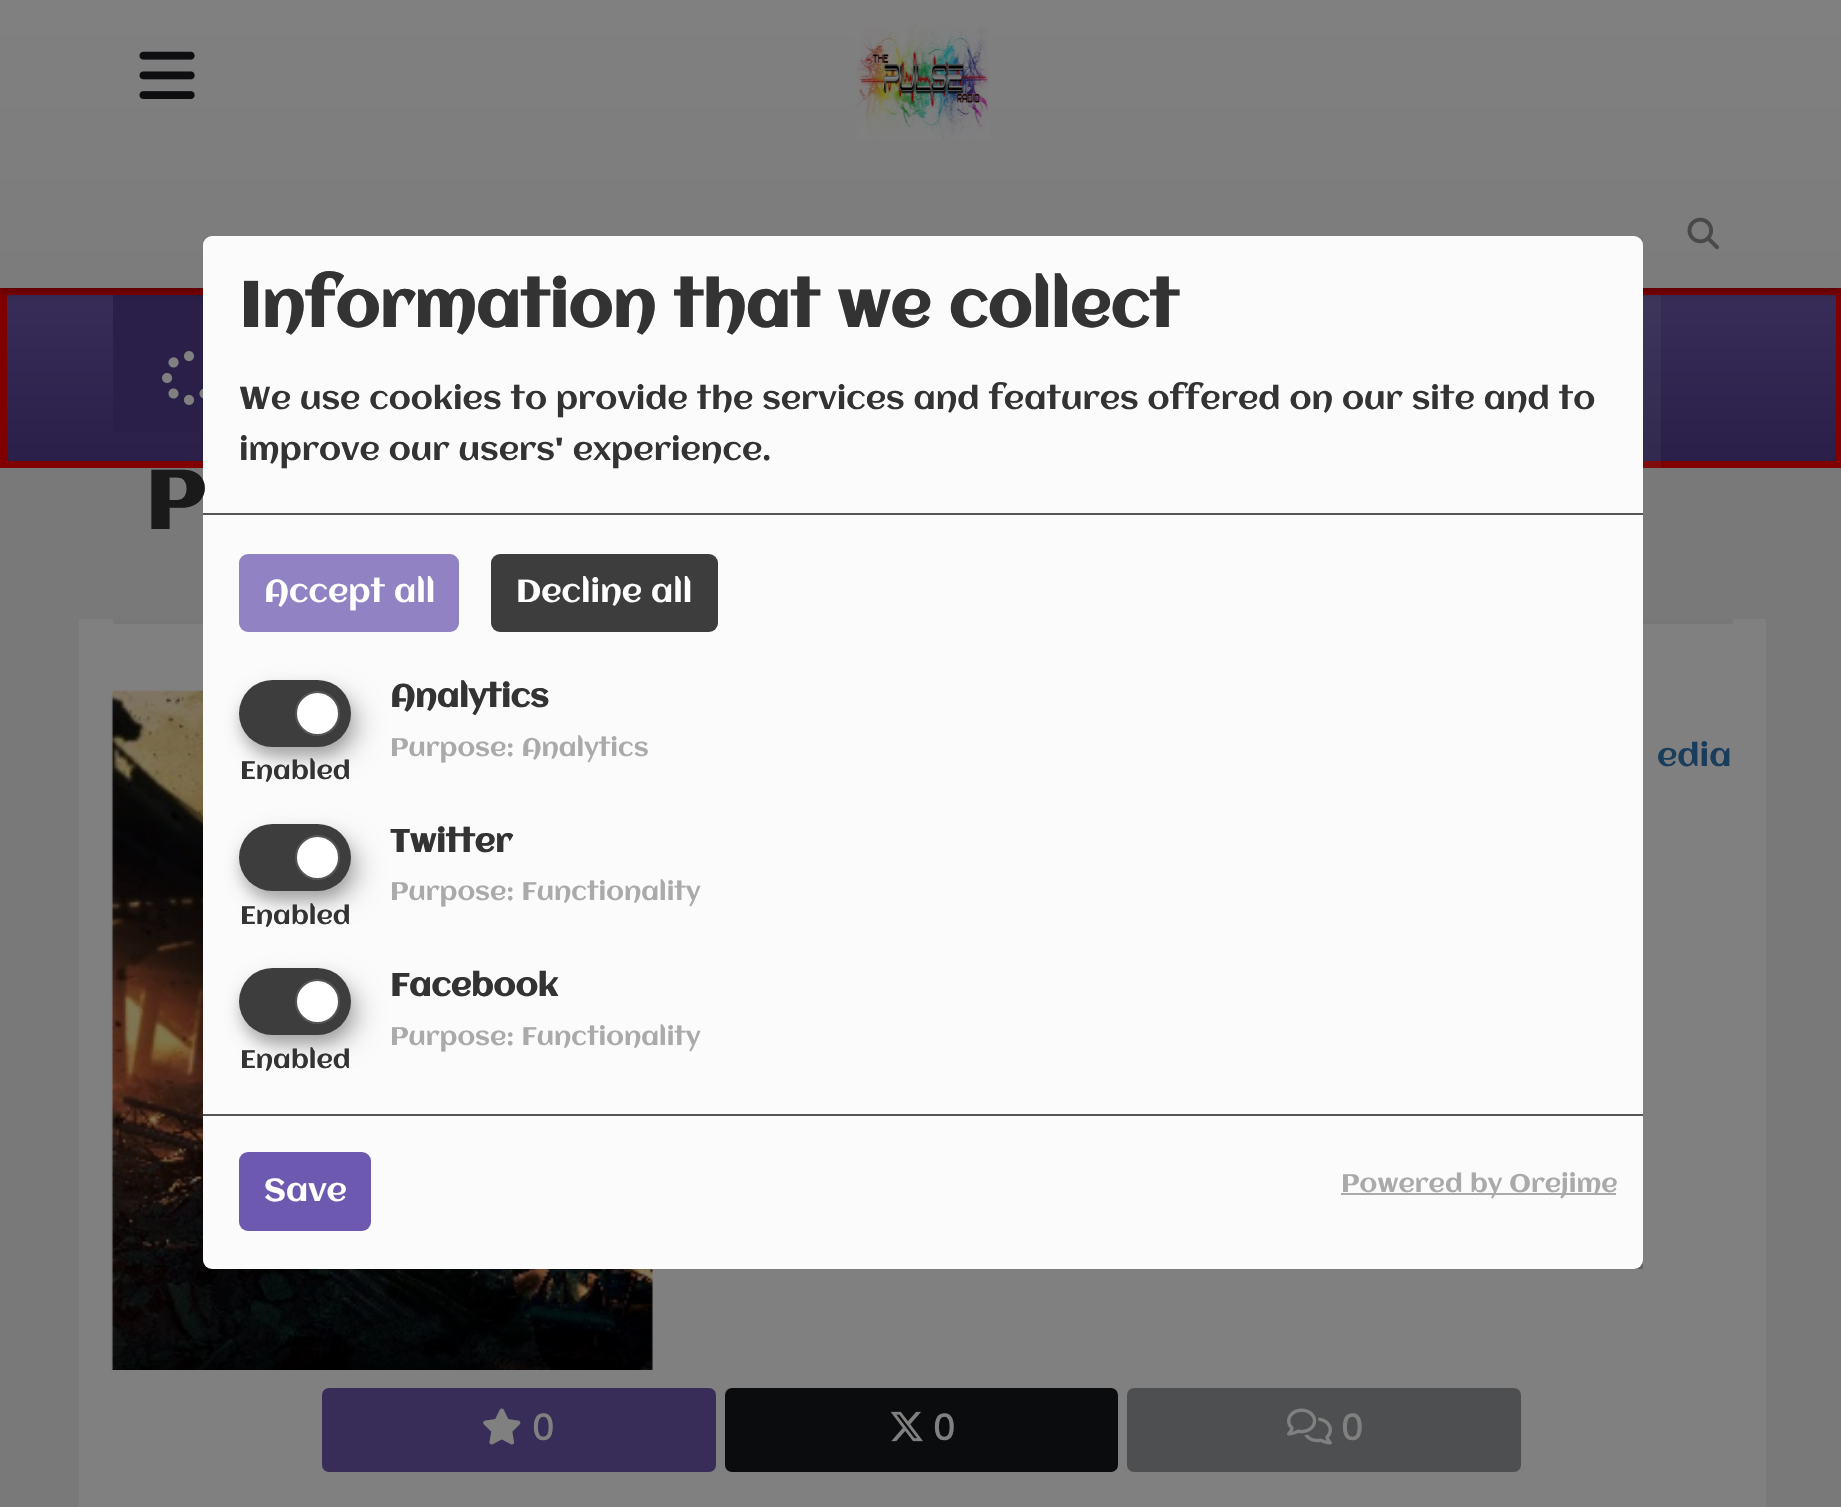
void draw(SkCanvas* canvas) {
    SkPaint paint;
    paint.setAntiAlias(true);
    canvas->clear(0xFF797979);
    {
        const SkColor colors[] = {0xFF372D58, 0xFF291F49};
        const float stops[] = {0, 1};
        const SkPoint ends[] = {{921, 295}, {921, 461}};
        paint.setShader(SkGradientShader::MakeLinear(ends, colors, stops, 2, SkTileMode::kClamp));
        paint.setAlpha(255);
    }
    canvas->drawRect(SkRect::MakeXYWH(7, 295, 1829, 166), paint);
    paint.setStyle(SkPaint::kStroke_Style);
    paint.setStrokeWidth(7);
    paint.setShader(nullptr);
    paint.setColor(0xFF800000);
    canvas->drawRect(SkRect::MakeXYWH(3.5f, 291.5f, 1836, 173), paint);
    paint.setStyle(SkPaint::kFill_Style);
    paint.setColor(0xFF291F49);
    canvas->drawRect(SkRect::MakeXYWH(113, 295, 90, 138), paint);
    paint.setColor(0x1A808080);
    canvas->drawRect(SkRect::MakeXYWH(1643, 295, 18, 173), paint);
    paint.setColor(0x66000000);
    paint.setMaskFilter(SkMaskFilter::MakeBlur(kNormal_SkBlurStyle, 5.5f));
    canvas->drawRect(SkRect::MakeXYWH(0, 2, 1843, 288), paint);
    paint.setMaskFilter(nullptr);
    {
        const SkColor colors[] = {0xFF808080, 0xFF7C7C7C};
        const float stops[] = {0, 1};
        const SkPoint ends[] = {{921, 0}, {921, 288}};
        paint.setShader(SkGradientShader::MakeLinear(ends, colors, stops, 2, SkTileMode::kClamp));
        paint.setAlpha(255);
    }
    canvas->drawRect(SkRect::MakeXYWH(0, 0, 1841, 288), paint);
    canvas->drawImageRect(SkImages::DeferredFromEncodedData(SkData::MakeFromFileName("img1.png")), SkRect::MakeXYWH(139, 51, 56, 48), SkSamplingOptions());
    canvas->drawImageRect(SkImages::DeferredFromEncodedData(SkData::MakeFromFileName("img2.png")), SkRect::MakeXYWH(855, 24, 135, 115), SkSamplingOptions());
    canvas->drawImageRect(SkImages::DeferredFromEncodedData(SkData::MakeFromFileName("img3.png")), SkRect::MakeXYWH(1687, 217, 32, 33), SkSamplingOptions());
    canvas->drawImageRect(SkImages::DeferredFromEncodedData(SkData::MakeFromFileName("img4.png")), SkRect::MakeXYWH(162, 351, 41, 54), SkSamplingOptions());
    paint.setShader(nullptr);
    paint.setColor(0xFF808080);
    canvas->drawRect(SkRect::MakeXYWH(79, 619, 1687, 888), paint);
    paint.setColor(0xFF777777);
    canvas->drawRect(SkRect::MakeXYWH(113, 619, 1620, 5), paint);
    canvas->drawImageRect(SkImages::DeferredFromEncodedData(SkData::MakeFromFileName("img5.png")), SkRect::MakeXYWH(111, 690, 542, 680), SkSamplingOptions());
    canvas->save();
    canvas->clipRect(SkRect::MakeXYWH(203, 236, 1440, 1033));
    paint.setColor(0x30000000);
    paint.setMaskFilter(SkMaskFilter::MakeBlur(kNormal_SkBlurStyle, 11));
    canvas->drawRoundRect(SkRect::MakeXYWH(214, 248, 1440, 1032), 9, 9, paint);
    paint.setMaskFilter(nullptr);
    paint.setColor(0x33000000);
    paint.setMaskFilter(SkMaskFilter::MakeBlur(kNormal_SkBlurStyle, 7));
    canvas->drawRoundRect(SkRect::MakeXYWH(203, 245, 1440, 1033), 9, 9, paint);
    paint.setMaskFilter(nullptr);
    canvas->restore();
    paint.setColor(0xFFFBFBFB);
    canvas->drawRoundRect(SkRect::MakeXYWH(203, 236, 1440, 1033), 9, 9, paint);
    paint.setColor(0xFF555555);
    canvas->drawRect(SkRect::MakeXYWH(203, 513, 1440, 2), paint);
    SkFont font1(fontMgr->matchFamilyStyle("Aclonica", SkFontStyle::Bold()), 63);
    font1.setSubpixel(true);
    paint.setColor(0xFF333333);
    canvas->drawString("Information that we collect", 239, 327, font1, paint);
    SkFont font2(fontMgr->matchFamilyStyle("Aclonica", SkFontStyle::Normal()), 31.5f);
    font2.setSubpixel(true);
    canvas->drawString("We use cookies to provide the services and features offered on our site and to", 239, 409, font2, paint);
    canvas->drawString("improve our users' experience.", 239, 460, font2, paint);
    paint.setColor(0xFF9182C3);
    canvas->drawRoundRect(SkRect::MakeXYWH(239, 554, 220, 78), 9, 9, paint);
    paint.setColor(0xFFFFFFFF);
    canvas->drawString("Accept all", 264, 602, font2, paint);
    paint.setColor(0xFF3E3D3D);
    canvas->drawRoundRect(SkRect::MakeXYWH(491, 554, 227, 78), 9, 9, paint);
    paint.setColor(0xFFFFFFFF);
    canvas->drawString("Decline all", 516, 602, font2, paint);
    SkFont font3(fontMgr->matchFamilyStyle("Aclonica", SkFontStyle::Bold()), 31.5f);
    font3.setSubpixel(true);
    paint.setColor(0xFF333333);
    canvas->drawString("Analytics", 390, 707, font3, paint);
    paint.setColor(0x30000000);
    paint.setMaskFilter(SkMaskFilter::MakeBlur(kNormal_SkBlurStyle, 11));
    canvas->drawRoundRect(SkRect::MakeXYWH(250, 691, 112, 67), 33.5f, 33.5f, paint);
    paint.setMaskFilter(nullptr);
    paint.setColor(0x33000000);
    paint.setMaskFilter(SkMaskFilter::MakeBlur(kNormal_SkBlurStyle, 7));
    canvas->drawRoundRect(SkRect::MakeXYWH(239, 689, 112, 67), 33.5f, 33.5f, paint);
    paint.setMaskFilter(nullptr);
    paint.setColor(0xFF3E3D3D);
    canvas->drawRoundRect(SkRect::MakeXYWH(239, 680, 112, 67), 33.5f, 33.5f, paint);
    paint.setColor(0xFFFFFFFF);
    canvas->drawCircle(317.5f, 713.5f, 21.5f, paint);
    paint.setStyle(SkPaint::kStroke_Style);
    paint.setStrokeWidth(2);
    paint.setColor(0xFF555555);
    canvas->drawCircle(317.5f, 713.5f, 21.5f, paint);
    SkFont font4(fontMgr->matchFamilyStyle("Aclonica", SkFontStyle::Normal()), 25.25f);
    font4.setSubpixel(true);
    paint.setStyle(SkPaint::kFill_Style);
    paint.setColor(0xFF333333);
    canvas->drawString("Enabled", 240, 779, font4, paint);
    paint.setColor(0xFFAAAAAA);
    canvas->drawString("Purpose: Analytics", 390, 756, font4, paint);
    paint.setColor(0xFF333333);
    canvas->drawString("Twitter", 390, 852, font3, paint);
    paint.setColor(0x30000000);
    paint.setMaskFilter(SkMaskFilter::MakeBlur(kNormal_SkBlurStyle, 11));
    canvas->drawRoundRect(SkRect::MakeXYWH(250, 835, 112, 67), 33.5f, 33.5f, paint);
    paint.setMaskFilter(nullptr);
    paint.setColor(0x33000000);
    paint.setMaskFilter(SkMaskFilter::MakeBlur(kNormal_SkBlurStyle, 7));
    canvas->drawRoundRect(SkRect::MakeXYWH(239, 833, 112, 67), 33.5f, 33.5f, paint);
    paint.setMaskFilter(nullptr);
    paint.setColor(0xFF3E3D3D);
    canvas->drawRoundRect(SkRect::MakeXYWH(239, 824, 112, 67), 33.5f, 33.5f, paint);
    paint.setColor(0xFFFFFFFF);
    canvas->drawCircle(317.5f, 857.5f, 21.5f, paint);
    paint.setStyle(SkPaint::kStroke_Style);
    paint.setColor(0xFF555555);
    canvas->drawCircle(317.5f, 857.5f, 21.5f, paint);
    paint.setStyle(SkPaint::kFill_Style);
    paint.setColor(0xFF333333);
    canvas->drawString("Enabled", 240, 924, font4, paint);
    paint.setColor(0xFFAAAAAA);
    canvas->drawString("Purpose: Functionality", 390, 900, font4, paint);
    paint.setColor(0xFF333333);
    canvas->drawString("Facebook", 390, 996, font3, paint);
    paint.setColor(0x30000000);
    paint.setMaskFilter(SkMaskFilter::MakeBlur(kNormal_SkBlurStyle, 11));
    canvas->drawRoundRect(SkRect::MakeXYWH(250, 979, 112, 67), 33.5f, 33.5f, paint);
    paint.setMaskFilter(nullptr);
    paint.setColor(0x33000000);
    paint.setMaskFilter(SkMaskFilter::MakeBlur(kNormal_SkBlurStyle, 7));
    canvas->drawRoundRect(SkRect::MakeXYWH(239, 977, 112, 67), 33.5f, 33.5f, paint);
    paint.setMaskFilter(nullptr);
    paint.setColor(0xFF3E3D3D);
    canvas->drawRoundRect(SkRect::MakeXYWH(239, 968, 112, 67), 33.5f, 33.5f, paint);
    paint.setColor(0xFFFFFFFF);
    canvas->drawCircle(317.5f, 1001.5f, 21.5f, paint);
    paint.setStyle(SkPaint::kStroke_Style);
    paint.setColor(0xFF555555);
    canvas->drawCircle(317.5f, 1001.5f, 21.5f, paint);
    paint.setStyle(SkPaint::kFill_Style);
    paint.setColor(0xFF333333);
    canvas->drawString("Enabled", 240, 1068, font4, paint);
    paint.setColor(0xFFAAAAAA);
    canvas->drawString("Purpose: Functionality", 390, 1045, font4, paint);
    paint.setColor(0xFF555555);
    canvas->drawRect(SkRect::MakeXYWH(203, 1114, 1440, 2), paint);
    paint.setColor(0xFF6D59B0);
    canvas->drawRoundRect(SkRect::MakeXYWH(239, 1152, 132, 79), 9, 9, paint);
    paint.setColor(0xFFFFFFFF);
    canvas->drawString("Save", 264, 1201, font2, paint);
    paint.setColor(0xFFAAAAAA);
    canvas->drawRect(SkRect::MakeXYWH(1341, 1193, 275, 2), paint);
    canvas->drawString("Powered by Orejime", 1341, 1192, font4, paint);
    SkFont font5(fontMgr->matchFamilyStyle("Aclonica", SkFontStyle::Bold()), 81);
    font5.setSubpixel(true);
    paint.setColor(0xFF1A1A1A);
    canvas->drawString("P", 145, 529, font5, paint);
    paint.setColor(0xFF1A3D5C);
    canvas->drawString("edia", 1657, 766, font2, paint);
    paint.setColor(0xFF372D58);
    canvas->drawRoundRect(SkRect::MakeXYWH(322, 1388, 394, 84), 7, 7, paint);
    canvas->drawImageRect(SkImages::DeferredFromEncodedData(SkData::MakeFromFileName("img6.png")), SkRect::MakeXYWH(483, 1408, 38, 37), SkSamplingOptions());
    SkFont font6(fontMgr->matchFamilyStyle("Nunito", SkFontStyle::Bold()), 36);
    font6.setSubpixel(true);
    paint.setColor(0xFF808080);
    canvas->drawString("0", 532, 1440, font6, paint);
    paint.setColor(0xFF0B0C0E);
    canvas->drawRoundRect(SkRect::MakeXYWH(725, 1388, 393, 84), 7, 7, paint);
    canvas->drawImageRect(SkImages::DeferredFromEncodedData(SkData::MakeFromFileName("img7.png")), SkRect::MakeXYWH(890, 1411, 33, 31), SkSamplingOptions());
    paint.setColor(0xFF808080);
    canvas->drawString("0", 933, 1440, font6, paint);
    paint.setColor(0xFF4E4F50);
    canvas->drawRoundRect(SkRect::MakeXYWH(1127, 1388, 394, 84), 7, 7, paint);
    canvas->drawImageRect(SkImages::DeferredFromEncodedData(SkData::MakeFromFileName("img8.png")), SkRect::MakeXYWH(1287, 1408, 45, 37), SkSamplingOptions());
    paint.setColor(0xFF808080);
    canvas->drawString("0", 1341, 1440, font6, paint);
}
